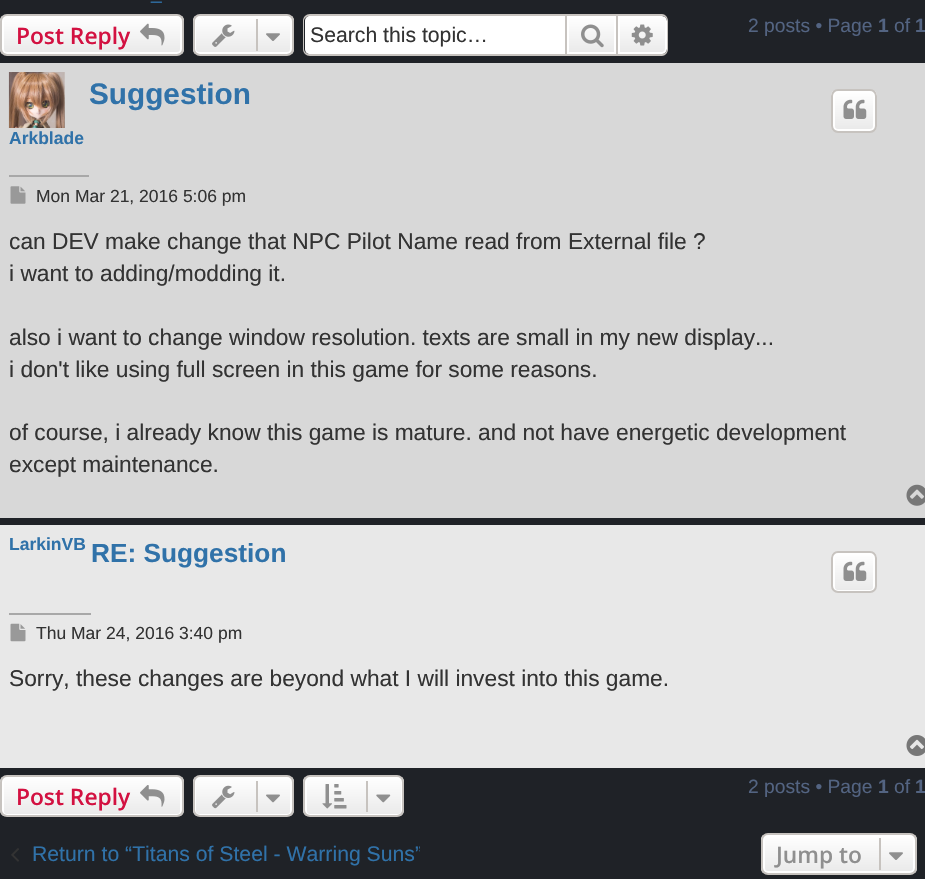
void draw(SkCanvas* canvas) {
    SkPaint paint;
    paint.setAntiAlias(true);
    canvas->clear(0xFF1F2227);
    SkFont font1(fontMgr->matchFamilyStyle("Liberation Sans", SkFontStyle::Normal()), 19.25f);
    font1.setSubpixel(true);
    paint.setColor(0xFF3072A9);
    canvas->drawString("_", 151, -1, font1, paint);
    canvas->save();
    canvas->clipPath(SkPathBuilder().moveTo(7, 14).lineTo(177, 14).cubicTo(181, 14, 184, 17, 184, 21).lineTo(184, 49).cubicTo(184, 53, 181, 56, 177, 56).lineTo(7, 56).cubicTo(3, 56, 0, 53, 0, 49).lineTo(0, 21).cubicTo(0, 17, 3, 14, 7, 14).close().detach(), true);
    {
        const SkColor colors[] = {0xFFFFFFFF, 0xFFE9E9E9};
        const float stops[] = {0, 1};
        const SkPoint ends[] = {{92, 16}, {92, 54}};
        paint.setShader(SkGradientShader::MakeLinear(ends, colors, stops, 2, SkTileMode::kClamp));
        paint.setAlpha(255);
    }
    canvas->drawRect(SkRect::MakeXYWH(0, 16, 184, 38), paint);
    canvas->restore();
    paint.setStyle(SkPaint::kStroke_Style);
    paint.setStrokeWidth(2);
    paint.setShader(nullptr);
    paint.setColor(0xFFFFFFFF);
    canvas->drawRoundRect(SkRect::MakeXYWH(3, 17, 178, 36), 4, 4, paint);
    paint.setColor(0xFFC7C3BF);
    canvas->drawRoundRect(SkRect::MakeXYWH(1, 15, 182, 40), 6, 6, paint);
    SkFont font2(fontMgr->matchFamilyStyle("Open Sans", SkFontStyle(600, SkFontStyle::kNormal_Width, SkFontStyle::kUpright_Slant)), 22.75f);
    font2.setSubpixel(true);
    paint.setStyle(SkPaint::kFill_Style);
    paint.setColor(0xFFD31141);
    canvas->drawString("Post Reply", 16, 44, font2, paint);
    canvas->drawImageRect(SkImages::DeferredFromEncodedData(SkData::MakeFromFileName("img1.png")), SkRect::MakeXYWH(140, 23, 25, 23), SkSamplingOptions());
    canvas->save();
    canvas->clipPath(SkPathBuilder().moveTo(200, 14).lineTo(287, 14).cubicTo(291, 14, 294, 17, 294, 21).lineTo(294, 49).cubicTo(294, 53, 291, 56, 287, 56).lineTo(200, 56).cubicTo(196, 56, 193, 53, 193, 49).lineTo(193, 21).cubicTo(193, 17, 196, 14, 200, 14).close().detach(), true);
    {
        const SkColor colors[] = {0xFFFFFFFF, 0xFFE9E9E9};
        const float stops[] = {0, 1};
        const SkPoint ends[] = {{243, 16}, {243, 54}};
        paint.setShader(SkGradientShader::MakeLinear(ends, colors, stops, 2, SkTileMode::kClamp));
        paint.setAlpha(255);
    }
    canvas->drawRect(SkRect::MakeXYWH(193, 16, 101, 38), paint);
    canvas->restore();
    paint.setStyle(SkPaint::kStroke_Style);
    paint.setShader(nullptr);
    paint.setColor(0xFFFFFFFF);
    canvas->drawRoundRect(SkRect::MakeXYWH(195, 17, 96, 36), 4, 4, paint);
    paint.setColor(0xFFC7C3BF);
    canvas->drawRoundRect(SkRect::MakeXYWH(194, 15, 99, 40), 6, 6, paint);
    canvas->drawImageRect(SkImages::DeferredFromEncodedData(SkData::MakeFromFileName("img2.png")), SkRect::MakeXYWH(212, 24, 23, 23), SkSamplingOptions());
    paint.setStyle(SkPaint::kFill_Style);
    canvas->drawRect(SkRect::MakeXYWH(256, 19, 2, 32), paint);
    canvas->drawImageRect(SkImages::DeferredFromEncodedData(SkData::MakeFromFileName("img3.png")), SkRect::MakeXYWH(266, 33, 14, 8), SkSamplingOptions());
    paint.setColor(0xFFFFFFFF);
    canvas->drawPath(SkPathBuilder().moveTo(310, 16).lineTo(565, 16).lineTo(565, 54).lineTo(310, 54).cubicTo(307, 54, 305, 52, 305, 49).lineTo(305, 21).cubicTo(305, 18, 307, 16, 310, 16).close().detach(), paint);
    paint.setColor(0xFFC7C3BF);
    canvas->drawPath(SkPathBuilder(SkPathFillType::kEvenOdd).moveTo(310, 14).lineTo(565, 14).lineTo(565, 56).lineTo(310, 56).cubicTo(306, 56, 303, 53, 303, 49).lineTo(303, 21).cubicTo(303, 17, 306, 14, 310, 14).close().moveTo(310, 16).lineTo(565, 16).lineTo(565, 54).lineTo(310, 54).cubicTo(307, 54, 304, 52, 304, 49).lineTo(304, 21).cubicTo(304, 18, 307, 16, 310, 16).close().detach(), paint);
    SkFont font3(fontMgr->matchFamilyStyle("Liberation Sans", SkFontStyle::Normal()), 21.2f);
    font3.setSubpixel(true);
    paint.setColor(0xFF333333);
    canvas->drawString("Search this topic…", 310, 42, font3, paint);
    {
        const SkColor colors[] = {0xFFFFFFFF, 0xFFE9E9E9};
        const float stops[] = {0, 1};
        const SkPoint ends[] = {{592, 16}, {592, 54}};
        paint.setShader(SkGradientShader::MakeLinear(ends, colors, stops, 2, SkTileMode::kClamp));
        paint.setAlpha(255);
    }
    canvas->drawRect(SkRect::MakeXYWH(569, 18, 45, 34), paint);
    paint.setStyle(SkPaint::kStroke_Style);
    paint.setShader(nullptr);
    paint.setColor(0xFFFFFFFF);
    canvas->drawRect(SkRect::MakeXYWH(568, 17, 47, 36), paint);
    paint.setColor(0xFFC7C3BF);
    canvas->drawRect(SkRect::MakeXYWH(566, 15, 51, 40), paint);
    canvas->drawImageRect(SkImages::DeferredFromEncodedData(SkData::MakeFromFileName("img4.png")), SkRect::MakeXYWH(581, 24, 23, 24), SkSamplingOptions());
    paint.setStyle(SkPaint::kFill_Style);
    {
        const SkColor colors[] = {0xFFFFFFFF, 0xFFE9E9E9};
        const float stops[] = {0, 1};
        const SkPoint ends[] = {{642, 16}, {642, 54}};
        paint.setShader(SkGradientShader::MakeLinear(ends, colors, stops, 2, SkTileMode::kClamp));
        paint.setAlpha(255);
    }
    canvas->drawPath(SkPathBuilder().moveTo(619, 17).lineTo(662, 17).cubicTo(664, 17, 666, 19, 666, 21).lineTo(666, 49).cubicTo(666, 51, 664, 53, 662, 53).lineTo(619, 53).close().detach(), paint);
    paint.setStyle(SkPaint::kStroke_Style);
    paint.setShader(nullptr);
    paint.setColor(0xFFFFFFFF);
    canvas->drawPath(SkPathBuilder().moveTo(619, 17).lineTo(662, 17).cubicTo(664, 17, 666, 19, 666, 21).lineTo(666, 49).cubicTo(666, 51, 664, 53, 662, 53).lineTo(619, 53).close().detach(), paint);
    paint.setStyle(SkPaint::kFill_Style);
    paint.setColor(0xFFC7C3BF);
    canvas->drawPath(SkPathBuilder(SkPathFillType::kEvenOdd).moveTo(618, 14).lineTo(662, 14).cubicTo(665, 14, 668, 17, 668, 21).lineTo(668, 49).cubicTo(668, 53, 665, 56, 662, 56).lineTo(618, 56).close().moveTo(618, 16).lineTo(662, 16).cubicTo(664, 16, 667, 18, 667, 21).lineTo(667, 49).cubicTo(667, 52, 664, 54, 662, 54).lineTo(618, 54).close().detach(), paint);
    canvas->drawImageRect(SkImages::DeferredFromEncodedData(SkData::MakeFromFileName("img5.png")), SkRect::MakeXYWH(631, 24, 22, 22), SkSamplingOptions());
    paint.setColor(0xFF536482);
    canvas->drawString("2 posts • Page", 748, 32, font1, paint);
    SkFont font4(fontMgr->matchFamilyStyle("Liberation Sans", SkFontStyle::Bold()), 19.25f);
    font4.setSubpixel(true);
    canvas->drawString("1", 878, 32, font4, paint);
    canvas->drawString("of", 894, 32, font1, paint);
    canvas->drawString("1", 915, 32, font4, paint);
    paint.setColor(0xFFD8D8D8);
    canvas->drawRect(SkRect::MakeXYWH(0, 63, 925, 455), paint);
    SkFont font5(fontMgr->matchFamilyStyle("Liberation Sans", SkFontStyle::Bold()), 29.75f);
    font5.setSubpixel(true);
    paint.setColor(0xFF3072A9);
    canvas->drawString("Suggestion", 89, 104, font5, paint);
    canvas->save();
    canvas->clipPath(SkPathBuilder().moveTo(838, 89).lineTo(870, 89).cubicTo(874, 89, 877, 92, 877, 96).lineTo(877, 126).cubicTo(877, 130, 874, 133, 870, 133).lineTo(838, 133).cubicTo(834, 133, 831, 130, 831, 126).lineTo(831, 96).cubicTo(831, 92, 834, 89, 838, 89).close().detach(), true);
    {
        const SkColor colors[] = {0xFFFFFFFF, 0xFFE9E9E9};
        const float stops[] = {0, 1};
        const SkPoint ends[] = {{854, 91}, {854, 131}};
        paint.setShader(SkGradientShader::MakeLinear(ends, colors, stops, 2, SkTileMode::kClamp));
        paint.setAlpha(255);
    }
    canvas->drawRect(SkRect::MakeXYWH(831, 91, 46, 40), paint);
    canvas->restore();
    paint.setStyle(SkPaint::kStroke_Style);
    paint.setShader(nullptr);
    paint.setColor(0xFFFFFFFF);
    canvas->drawRoundRect(SkRect::MakeXYWH(834, 92, 40, 38), 4, 4, paint);
    paint.setColor(0xFFC7C3BF);
    canvas->drawRoundRect(SkRect::MakeXYWH(832, 90, 44, 42), 6, 6, paint);
    canvas->drawImageRect(SkImages::DeferredFromEncodedData(SkData::MakeFromFileName("img6.png")), SkRect::MakeXYWH(843, 99, 24, 20), SkSamplingOptions());
    canvas->drawImageRect(SkImages::DeferredFromEncodedData(SkData::MakeFromFileName("img7.png")), SkRect::MakeXYWH(10, 186, 16, 18), SkSamplingOptions());
    SkFont font6(fontMgr->matchFamilyStyle("Liberation Sans", SkFontStyle::Normal()), 17.5f);
    font6.setSubpixel(true);
    paint.setStyle(SkPaint::kFill_Style);
    paint.setColor(0xFF333333);
    canvas->drawString("Mon Mar 21, 2016 5:06 pm", 36, 202, font6, paint);
    SkFont font7(fontMgr->matchFamilyStyle("Liberation Sans", SkFontStyle::Normal()), 22.75f);
    font7.setSubpixel(true);
    canvas->drawString("can DEV make change that NPC Pilot Name read from External file ?", 9, 249, font7, paint);
    canvas->drawString("i want to adding/modding it.", 9, 281, font7, paint);
    canvas->drawString("also i want to change window resolution. texts are small in my new display...", 9, 345, font7, paint);
    canvas->drawString("i don't like using full screen in this game for some reasons.", 9, 377, font7, paint);
    canvas->drawString("of course, i already know this game is mature. and not have energetic development", 9, 440, font7, paint);
    canvas->drawString("except maintenance.", 9, 472, font7, paint);
    paint.setColor(0xFFA8A8A8);
    canvas->drawRect(SkRect::MakeXYWH(9, 175, 80, 2), paint);
    canvas->drawImageRect(SkImages::DeferredFromEncodedData(SkData::MakeFromFileName("img8.png")), SkRect::MakeXYWH(8, 72, 57, 56), SkSamplingOptions());
    SkFont font8(fontMgr->matchFamilyStyle("Liberation Sans", SkFontStyle::Bold()), 17.5f);
    font8.setSubpixel(true);
    paint.setColor(0xFF3072A9);
    canvas->drawString("Arkblade", 9, 144, font8, paint);
    canvas->drawImageRect(SkImages::DeferredFromEncodedData(SkData::MakeFromFileName("img9.png")), SkRect::MakeXYWH(906, 484, 19, 22), SkSamplingOptions());
    paint.setColor(0xFFE8E8E8);
    canvas->drawRect(SkRect::MakeXYWH(0, 525, 925, 243), paint);
    paint.setColor(0xFFA8A8A8);
    canvas->drawRect(SkRect::MakeXYWH(9, 613, 82, 2), paint);
    paint.setColor(0xFF3072A9);
    canvas->drawString("LarkinVB", 9, 550, font8, paint);
    SkFont font9(fontMgr->matchFamilyStyle("Liberation Sans", SkFontStyle::Bold()), 26.25f);
    font9.setSubpixel(true);
    canvas->drawString("RE: Suggestion", 91, 562, font9, paint);
    canvas->save();
    canvas->clipPath(SkPathBuilder().moveTo(838, 551).lineTo(870, 551).cubicTo(874, 551, 877, 554, 877, 558).lineTo(877, 586).cubicTo(877, 590, 874, 593, 870, 593).lineTo(838, 593).cubicTo(834, 593, 831, 590, 831, 586).lineTo(831, 558).cubicTo(831, 554, 834, 551, 838, 551).close().detach(), true);
    {
        const SkColor colors[] = {0xFFFFFFFF, 0xFFE9E9E9};
        const float stops[] = {0, 1};
        const SkPoint ends[] = {{854, 553}, {854, 592}};
        paint.setShader(SkGradientShader::MakeLinear(ends, colors, stops, 2, SkTileMode::kClamp));
        paint.setAlpha(255);
    }
    canvas->drawRect(SkRect::MakeXYWH(831, 553, 46, 39), paint);
    canvas->restore();
    paint.setStyle(SkPaint::kStroke_Style);
    paint.setShader(nullptr);
    paint.setColor(0xFFFFFFFF);
    canvas->drawRoundRect(SkRect::MakeXYWH(834, 554, 40, 37), 4, 4, paint);
    paint.setColor(0xFFC7C3BF);
    canvas->drawRoundRect(SkRect::MakeXYWH(832, 552, 44, 40), 6, 6, paint);
    canvas->drawImageRect(SkImages::DeferredFromEncodedData(SkData::MakeFromFileName("img10.png")), SkRect::MakeXYWH(843, 561, 24, 20), SkSamplingOptions());
    canvas->drawImageRect(SkImages::DeferredFromEncodedData(SkData::MakeFromFileName("img11.png")), SkRect::MakeXYWH(10, 623, 16, 19), SkSamplingOptions());
    paint.setStyle(SkPaint::kFill_Style);
    paint.setColor(0xFF333333);
    canvas->drawString("Thu Mar 24, 2016 3:40 pm", 36, 639, font6, paint);
    canvas->drawString("Sorry, these changes are beyond what I will invest into this game.", 9, 686, font7, paint);
    canvas->drawImageRect(SkImages::DeferredFromEncodedData(SkData::MakeFromFileName("img12.png")), SkRect::MakeXYWH(906, 735, 19, 21), SkSamplingOptions());
    canvas->save();
    canvas->clipPath(SkPathBuilder().moveTo(7, 775).lineTo(177, 775).cubicTo(181, 775, 184, 778, 184, 782).lineTo(184, 810).cubicTo(184, 814, 181, 817, 177, 817).lineTo(7, 817).cubicTo(3, 817, 0, 814, 0, 810).lineTo(0, 782).cubicTo(0, 778, 3, 775, 7, 775).close().detach(), true);
    {
        const SkColor colors[] = {0xFFFFFFFF, 0xFFE9E9E9};
        const float stops[] = {0, 1};
        const SkPoint ends[] = {{92, 777}, {92, 816}};
        paint.setShader(SkGradientShader::MakeLinear(ends, colors, stops, 2, SkTileMode::kClamp));
        paint.setAlpha(255);
    }
    canvas->drawRect(SkRect::MakeXYWH(0, 777, 184, 39), paint);
    canvas->restore();
    paint.setStyle(SkPaint::kStroke_Style);
    paint.setShader(nullptr);
    paint.setColor(0xFFFFFFFF);
    canvas->drawRoundRect(SkRect::MakeXYWH(3, 778, 178, 37), 4, 4, paint);
    paint.setColor(0xFFC7C3BF);
    canvas->drawRoundRect(SkRect::MakeXYWH(1, 776, 182, 40), 6, 6, paint);
    paint.setStyle(SkPaint::kFill_Style);
    paint.setColor(0xFFD31141);
    canvas->drawString("Post Reply", 16, 805, font2, paint);
    canvas->drawImageRect(SkImages::DeferredFromEncodedData(SkData::MakeFromFileName("img13.png")), SkRect::MakeXYWH(140, 785, 25, 22), SkSamplingOptions());
    canvas->save();
    canvas->clipPath(SkPathBuilder().moveTo(200, 775).lineTo(287, 775).cubicTo(291, 775, 294, 778, 294, 782).lineTo(294, 810).cubicTo(294, 814, 291, 817, 287, 817).lineTo(200, 817).cubicTo(196, 817, 193, 814, 193, 810).lineTo(193, 782).cubicTo(193, 778, 196, 775, 200, 775).close().detach(), true);
    {
        const SkColor colors[] = {0xFFFFFFFF, 0xFFE9E9E9};
        const float stops[] = {0, 1};
        const SkPoint ends[] = {{243, 777}, {243, 816}};
        paint.setShader(SkGradientShader::MakeLinear(ends, colors, stops, 2, SkTileMode::kClamp));
        paint.setAlpha(255);
    }
    canvas->drawRect(SkRect::MakeXYWH(193, 777, 101, 39), paint);
    canvas->restore();
    paint.setStyle(SkPaint::kStroke_Style);
    paint.setShader(nullptr);
    paint.setColor(0xFFFFFFFF);
    canvas->drawRoundRect(SkRect::MakeXYWH(195, 778, 96, 37), 4, 4, paint);
    paint.setColor(0xFFC7C3BF);
    canvas->drawRoundRect(SkRect::MakeXYWH(194, 776, 99, 40), 6, 6, paint);
    canvas->drawImageRect(SkImages::DeferredFromEncodedData(SkData::MakeFromFileName("img14.png")), SkRect::MakeXYWH(212, 785, 23, 24), SkSamplingOptions());
    paint.setStyle(SkPaint::kFill_Style);
    canvas->drawRect(SkRect::MakeXYWH(256, 781, 2, 31), paint);
    canvas->drawImageRect(SkImages::DeferredFromEncodedData(SkData::MakeFromFileName("img15.png")), SkRect::MakeXYWH(266, 794, 14, 9), SkSamplingOptions());
    canvas->save();
    canvas->clipPath(SkPathBuilder().moveTo(310, 775).lineTo(397, 775).cubicTo(401, 775, 404, 778, 404, 782).lineTo(404, 810).cubicTo(404, 814, 401, 817, 397, 817).lineTo(310, 817).cubicTo(306, 817, 303, 814, 303, 810).lineTo(303, 782).cubicTo(303, 778, 306, 775, 310, 775).close().detach(), true);
    {
        const SkColor colors[] = {0xFFFFFFFF, 0xFFE9E9E9};
        const float stops[] = {0, 1};
        const SkPoint ends[] = {{354, 777}, {354, 816}};
        paint.setShader(SkGradientShader::MakeLinear(ends, colors, stops, 2, SkTileMode::kClamp));
        paint.setAlpha(255);
    }
    canvas->drawRect(SkRect::MakeXYWH(303, 777, 101, 39), paint);
    canvas->restore();
    paint.setStyle(SkPaint::kStroke_Style);
    paint.setShader(nullptr);
    paint.setColor(0xFFFFFFFF);
    canvas->drawRoundRect(SkRect::MakeXYWH(306, 778, 96, 37), 4, 4, paint);
    paint.setColor(0xFFC7C3BF);
    canvas->drawRoundRect(SkRect::MakeXYWH(304, 776, 99, 40), 6, 6, paint);
    canvas->drawImageRect(SkImages::DeferredFromEncodedData(SkData::MakeFromFileName("img16.png")), SkRect::MakeXYWH(322, 784, 25, 25), SkSamplingOptions());
    paint.setStyle(SkPaint::kFill_Style);
    canvas->drawRect(SkRect::MakeXYWH(366, 781, 2, 31), paint);
    canvas->drawImageRect(SkImages::DeferredFromEncodedData(SkData::MakeFromFileName("img17.png")), SkRect::MakeXYWH(376, 794, 15, 9), SkSamplingOptions());
    paint.setColor(0xFF536482);
    canvas->drawString("2 posts • Page", 748, 793, font1, paint);
    canvas->drawString("1", 878, 793, font4, paint);
    canvas->drawString("of", 894, 793, font1, paint);
    canvas->drawString("1", 915, 793, font4, paint);
    canvas->drawImageRect(SkImages::DeferredFromEncodedData(SkData::MakeFromFileName("img18.png")), SkRect::MakeXYWH(11, 848, 8, 14), SkSamplingOptions());
    canvas->save();
    canvas->clipRect(SkRect::MakeXYWH(0, 842, 420, 28));
    paint.setColor(0xFF3072A9);
    canvas->drawString("Return to “Titans of Steel - Warring Suns”", 32, 861, font3, paint);
    canvas->restore();
    canvas->save();
    canvas->clipPath(SkPathBuilder().moveTo(768, 833).lineTo(910, 833).cubicTo(914, 833, 917, 836, 917, 840).lineTo(917, 868).cubicTo(917, 872, 914, 875, 910, 875).lineTo(768, 875).cubicTo(764, 875, 761, 872, 761, 868).lineTo(761, 840).cubicTo(761, 836, 764, 833, 768, 833).close().detach(), true);
    {
        const SkColor colors[] = {0xFFFFFFFF, 0xFFE9E9E9};
        const float stops[] = {0, 1};
        const SkPoint ends[] = {{839, 835}, {839, 873}};
        paint.setShader(SkGradientShader::MakeLinear(ends, colors, stops, 2, SkTileMode::kClamp));
        paint.setAlpha(255);
    }
    canvas->drawRect(SkRect::MakeXYWH(761, 835, 156, 38), paint);
    canvas->restore();
    paint.setStyle(SkPaint::kStroke_Style);
    paint.setShader(nullptr);
    paint.setColor(0xFFFFFFFF);
    canvas->drawRoundRect(SkRect::MakeXYWH(764, 836, 150, 36), 4, 4, paint);
    paint.setColor(0xFFC7C3BF);
    canvas->drawRoundRect(SkRect::MakeXYWH(762, 834, 154, 40), 6, 6, paint);
    paint.setStyle(SkPaint::kFill_Style);
    paint.setColor(0xFF8F8F8F);
    canvas->drawString("Jump to", 776, 863, font2, paint);
    paint.setColor(0xFFC7C3BF);
    canvas->drawRect(SkRect::MakeXYWH(879, 838, 2, 32), paint);
    canvas->drawImageRect(SkImages::DeferredFromEncodedData(SkData::MakeFromFileName("img3.png")), SkRect::MakeXYWH(889, 852, 14, 8), SkSamplingOptions());
}
